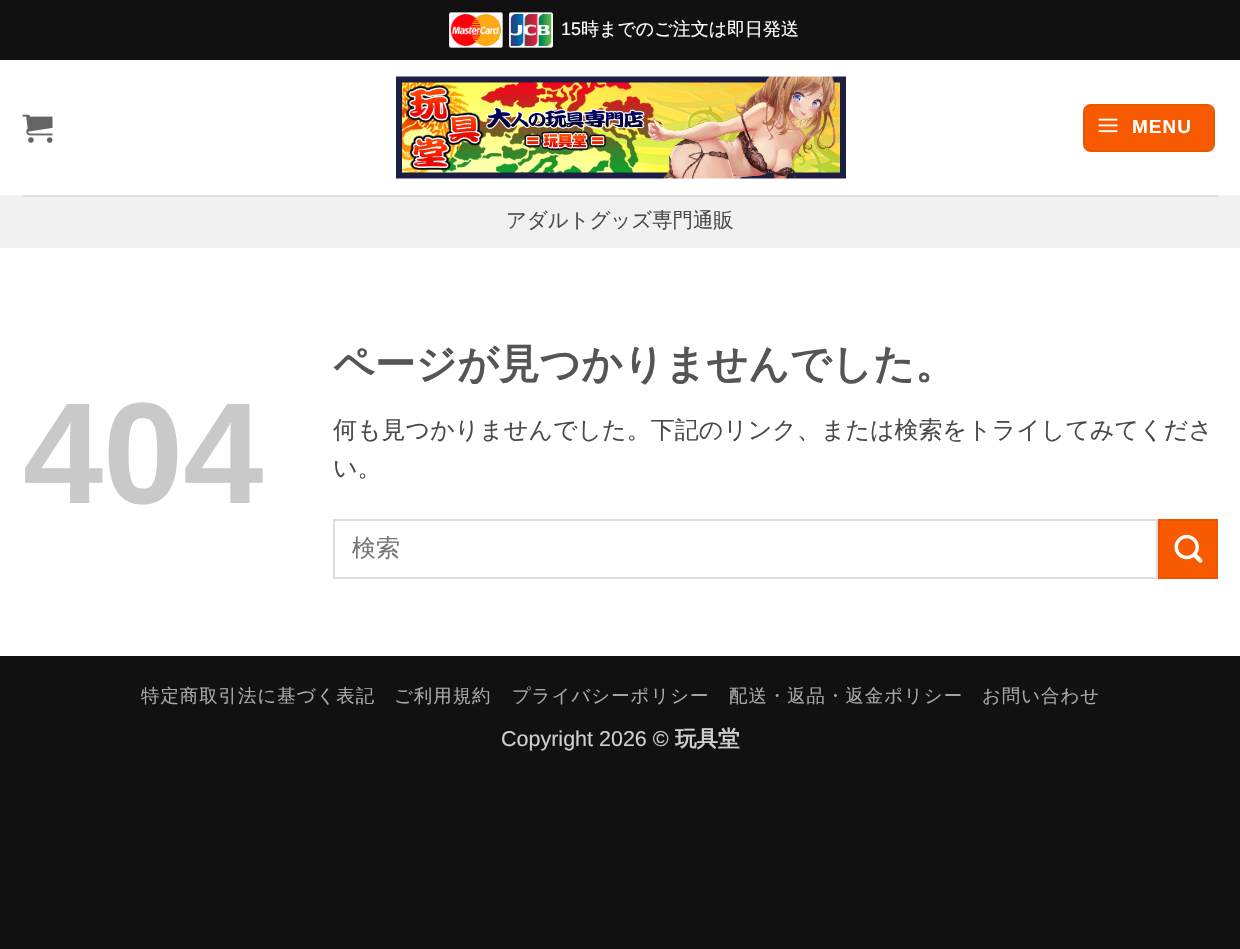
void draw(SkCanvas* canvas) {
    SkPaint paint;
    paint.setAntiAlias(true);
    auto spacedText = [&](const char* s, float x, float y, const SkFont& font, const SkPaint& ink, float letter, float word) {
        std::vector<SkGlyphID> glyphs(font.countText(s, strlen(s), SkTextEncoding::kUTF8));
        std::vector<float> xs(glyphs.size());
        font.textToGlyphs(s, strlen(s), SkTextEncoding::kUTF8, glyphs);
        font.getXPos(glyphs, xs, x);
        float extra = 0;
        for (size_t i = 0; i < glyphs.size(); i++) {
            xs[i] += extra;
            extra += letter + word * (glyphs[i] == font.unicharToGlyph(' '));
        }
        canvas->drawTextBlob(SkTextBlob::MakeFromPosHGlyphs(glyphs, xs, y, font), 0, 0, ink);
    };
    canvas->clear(0xFF111111);
    paint.setColor(0xFFFFFFFF);
    canvas->drawRect(SkRect::MakeXYWH(0, 60, 1240, 596), paint);
    canvas->drawImageRect(SkImages::DeferredFromEncodedData(SkData::MakeFromFileName("img1.png")), SkRect::MakeXYWH(449, 12, 104, 36), SkSamplingOptions());
    SkFont font1(fontMgr->matchFamilyStyle("Liberation Sans", SkFontStyle::Normal()), 18);
    font1.setSubpixel(true);
    canvas->drawString("15", 561, 35, font1, paint);
    SkFont font2(fontMgr->matchFamilyStyle("WenQuanYi Zen Hei", SkFontStyle(500, SkFontStyle::kNormal_Width, SkFontStyle::kUpright_Slant)), 18);
    font2.setSubpixel(true);
    canvas->drawString("時までのご注文は即日発送", 581, 35, font2, paint);
    canvas->drawImageRect(SkImages::DeferredFromEncodedData(SkData::MakeFromFileName("img2.png")), SkRect::MakeXYWH(22, 114, 31, 29), SkSamplingOptions());
    canvas->drawImageRect(SkImages::DeferredFromEncodedData(SkData::MakeFromFileName("img3.png")), SkRect::MakeXYWH(396, 76, 450, 103), SkSamplingOptions());
    paint.setColor(0xFFF85A01);
    canvas->drawRoundRect(SkRect::MakeXYWH(1083, 104, 132, 48), 8, 8, paint);
    paint.setStyle(SkPaint::kStroke_Style);
    paint.setStrokeWidth(2);
    paint.setColor(0x0D000000);
    canvas->drawRect(SkRect::MakeXYWH(1084, 105, 130, 46), paint);
    canvas->drawImageRect(SkImages::DeferredFromEncodedData(SkData::MakeFromFileName("img4.png")), SkRect::MakeXYWH(1098, 118, 20, 15), SkSamplingOptions());
    SkFont font3(fontMgr->matchFamilyStyle("Liberation Sans", SkFontStyle::Bold()), 19);
    font3.setSubpixel(true);
    paint.setStyle(SkPaint::kFill_Style);
    paint.setColor(0xFFFFFFFF);
    spacedText("MENU", 1132, 133, font3, paint, 1, 0);
    paint.setColor(0xFFF1F1F1);
    canvas->drawRect(SkRect::MakeXYWH(0, 195, 1240, 53), paint);
    paint.setColor(0xFFE0E0E0);
    canvas->drawRect(SkRect::MakeXYWH(23, 195, 1195, 2), paint);
    SkFont font4(fontMgr->matchFamilyStyle("WenQuanYi Zen Hei", SkFontStyle(500, SkFontStyle::kNormal_Width, SkFontStyle::kUpright_Slant)), 20.4f);
    font4.setSubpixel(true);
    paint.setColor(0xFF4A4A4A);
    canvas->drawString("アダルトグッズ専門通販", 506, 227, font4, paint);
    SkFont font5(fontMgr->matchFamilyStyle("Liberation Sans", SkFontStyle::Bold()), 144);
    font5.setSubpixel(true);
    paint.setColor(0xFFC9C9C9);
    canvas->drawString("404", 23, 503, font5, paint);
    SkFont font6(fontMgr->matchFamilyStyle("WenQuanYi Zen Hei", SkFontStyle::Bold()), 40.75f);
    font6.setSubpixel(true);
    paint.setColor(0xFF555555);
    canvas->drawString("ページが見つかりませんでした。", 333, 378, font6, paint);
    SkFont font7(fontMgr->matchFamilyStyle("WenQuanYi Zen Hei", SkFontStyle(500, SkFontStyle::kNormal_Width, SkFontStyle::kUpright_Slant)), 24);
    font7.setSubpixel(true);
    paint.setColor(0xFF4A4A4A);
    canvas->drawString("何も見つかりませんでした。下記のリンク、または検索をトライしてみてくださ", 333, 438, font7, paint);
    canvas->drawString("い。", 333, 476, font7, paint);
    paint.setStyle(SkPaint::kStroke_Style);
    paint.setColor(0xFFDDDDDD);
    canvas->drawRect(SkRect::MakeXYWH(334, 520, 823, 58), paint);
    paint.setStyle(SkPaint::kFill_Style);
    paint.setColor(0xFF757575);
    canvas->drawString("検索", 352, 556, font7, paint);
    paint.setColor(0xFFF85A01);
    canvas->drawRect(SkRect::MakeXYWH(1159, 520, 58, 58), paint);
    paint.setStyle(SkPaint::kStroke_Style);
    paint.setColor(0xFFEC5601);
    canvas->drawRect(SkRect::MakeXYWH(1159, 520, 58, 58), paint);
    canvas->drawImageRect(SkImages::DeferredFromEncodedData(SkData::MakeFromFileName("img5.png")), SkRect::MakeXYWH(1174, 534, 29, 29), SkSamplingOptions());
    SkFont font8(fontMgr->matchFamilyStyle("WenQuanYi Zen Hei", SkFontStyle(500, SkFontStyle::kNormal_Width, SkFontStyle::kUpright_Slant)), 18.4f);
    font8.setSubpixel(true);
    paint.setStyle(SkPaint::kFill_Style);
    paint.setColor(0xFFA9A9A9);
    spacedText("特定商取引法に基づく表記", 141, 702, font8, paint, 1, 0);
    spacedText("ご利用規約", 394, 702, font8, paint, 1, 0);
    spacedText("プライバシーポリシー", 512, 702, font8, paint, 1, 0);
    spacedText("配送・返品・返金ポリシー", 729, 702, font8, paint, 1, 0);
    spacedText("お問い合わせ", 982, 702, font8, paint, 1, 0);
    SkFont font9(fontMgr->matchFamilyStyle("Liberation Sans", SkFontStyle::Normal()), 21.5f);
    font9.setSubpixel(true);
    paint.setColor(0xFFCFCFCF);
    canvas->drawString("Copyright 2026 ©", 501, 746, font9, paint);
    SkFont font10(fontMgr->matchFamilyStyle("WenQuanYi Zen Hei", SkFontStyle::Bold()), 21.5f);
    font10.setSubpixel(true);
    canvas->drawString("玩具堂", 675, 746, font10, paint);
}
